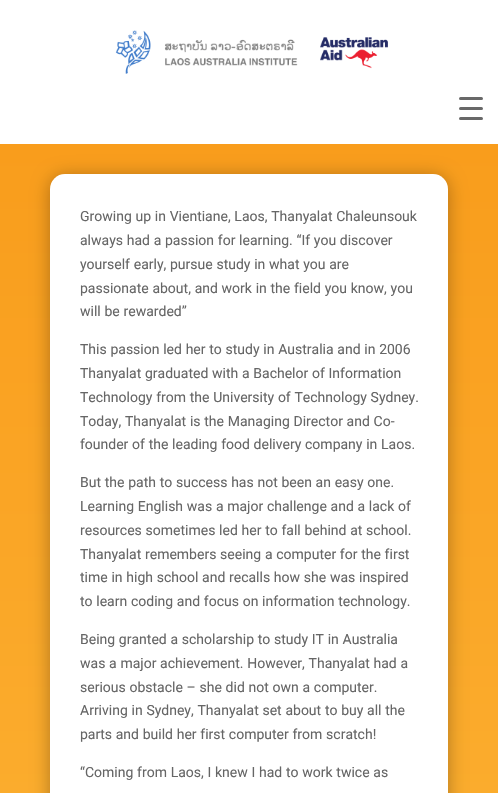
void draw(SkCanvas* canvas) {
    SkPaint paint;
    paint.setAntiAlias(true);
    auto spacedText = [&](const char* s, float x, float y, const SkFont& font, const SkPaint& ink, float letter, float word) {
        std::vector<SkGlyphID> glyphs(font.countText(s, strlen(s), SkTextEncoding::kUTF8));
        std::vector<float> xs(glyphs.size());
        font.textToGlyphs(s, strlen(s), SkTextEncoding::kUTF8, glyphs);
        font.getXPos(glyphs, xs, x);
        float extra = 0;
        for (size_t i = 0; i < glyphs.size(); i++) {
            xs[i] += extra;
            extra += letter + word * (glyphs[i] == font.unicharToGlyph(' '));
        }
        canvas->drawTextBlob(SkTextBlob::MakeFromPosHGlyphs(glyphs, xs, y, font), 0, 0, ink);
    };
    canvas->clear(0xFFFFFFFF);
    canvas->drawImageRect(SkImages::DeferredFromEncodedData(SkData::MakeFromFileName("img1.png")), SkRect::MakeXYWH(115, 30, 273, 44), SkSamplingOptions());
    paint.setColor(0xFF686868);
    canvas->drawRoundRect(SkRect::MakeXYWH(459, 107, 24, 3), 1.5f, 1.5f, paint);
    canvas->drawRoundRect(SkRect::MakeXYWH(459, 97, 24, 3), 1.5f, 1.5f, paint);
    canvas->drawRoundRect(SkRect::MakeXYWH(459, 117, 24, 3), 1.5f, 1.5f, paint);
    {
        const SkColor colors[] = {0xFFF99D1C, 0xFFFFCD52};
        const float stops[] = {0, 1};
        const SkPoint ends[] = {{249, 144}, {249, 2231}};
        paint.setShader(SkGradientShader::MakeLinear(ends, colors, stops, 2, SkTileMode::kClamp));
        paint.setAlpha(255);
    }
    canvas->drawRect(SkRect::MakeXYWH(0, 144, 498, 649), paint);
    paint.setShader(nullptr);
    paint.setColor(0x4D000000);
    paint.setMaskFilter(SkMaskFilter::MakeBlur(kNormal_SkBlurStyle, 9));
    canvas->drawRoundRect(SkRect::MakeXYWH(50, 176, 398, 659), 15, 15, paint);
    paint.setMaskFilter(nullptr);
    paint.setColor(0xFFFFFFFF);
    canvas->drawRoundRect(SkRect::MakeXYWH(50, 174, 398, 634), 15, 15, paint);
    SkFont font1(fontMgr->matchFamilyStyle("Roboto", SkFontStyle::Normal()), 14);
    font1.setSubpixel(true);
    paint.setColor(0xFF666666);
    spacedText("Growing up in Vientiane, Laos, Thanyalat Chaleunsouk", 80, 221, font1, paint, 0, 0.25f);
    spacedText("always had a passion for learning. “If you discover", 80, 245, font1, paint, 0, 0.25f);
    spacedText("yourself early, pursue study in what you are", 80, 269, font1, paint, 0, 0.25f);
    spacedText("passionate about, and work in the field you know, you", 80, 293, font1, paint, 0, 0.25f);
    spacedText("will be rewarded”", 80, 316, font1, paint, 0, 0.25f);
    spacedText("This passion led her to study in Australia and in 2006", 80, 354, font1, paint, 0, 0.25f);
    spacedText("Thanyalat graduated with a Bachelor of Information", 80, 378, font1, paint, 0, 0.25f);
    spacedText("Technology from the University of Technology Sydney.", 80, 402, font1, paint, 0, 0.25f);
    spacedText("Today, Thanyalat is the Managing Director and Co-", 80, 426, font1, paint, 0, 0.25f);
    spacedText("founder of the leading food delivery company in Laos.", 80, 449, font1, paint, 0, 0.25f);
    spacedText("But the path to success has not been an easy one.", 80, 487, font1, paint, 0, 0.25f);
    spacedText("Learning English was a major challenge and a lack of", 80, 511, font1, paint, 0, 0.25f);
    spacedText("resources sometimes led her to fall behind at school.", 80, 535, font1, paint, 0, 0.25f);
    spacedText("Thanyalat remembers seeing a computer for the first", 80, 559, font1, paint, 0, 0.25f);
    spacedText("time in high school and recalls how she was inspired", 80, 582, font1, paint, 0, 0.25f);
    spacedText("to learn coding and focus on information technology.", 80, 606, font1, paint, 0, 0.25f);
    spacedText("Being granted a scholarship to study IT in Australia", 80, 644, font1, paint, 0, 0.25f);
    spacedText("was a major achievement. However, Thanyalat had a", 80, 668, font1, paint, 0, 0.25f);
    spacedText("serious obstacle – she did not own a computer.", 80, 692, font1, paint, 0, 0.25f);
    spacedText("Arriving in Sydney, Thanyalat set about to buy all the", 80, 715, font1, paint, 0, 0.25f);
    spacedText("parts and build her first computer from scratch!", 80, 739, font1, paint, 0, 0.25f);
    spacedText("“Coming from Laos, I knew I had to work twice as", 80, 777, font1, paint, 0, 0.25f);
}
